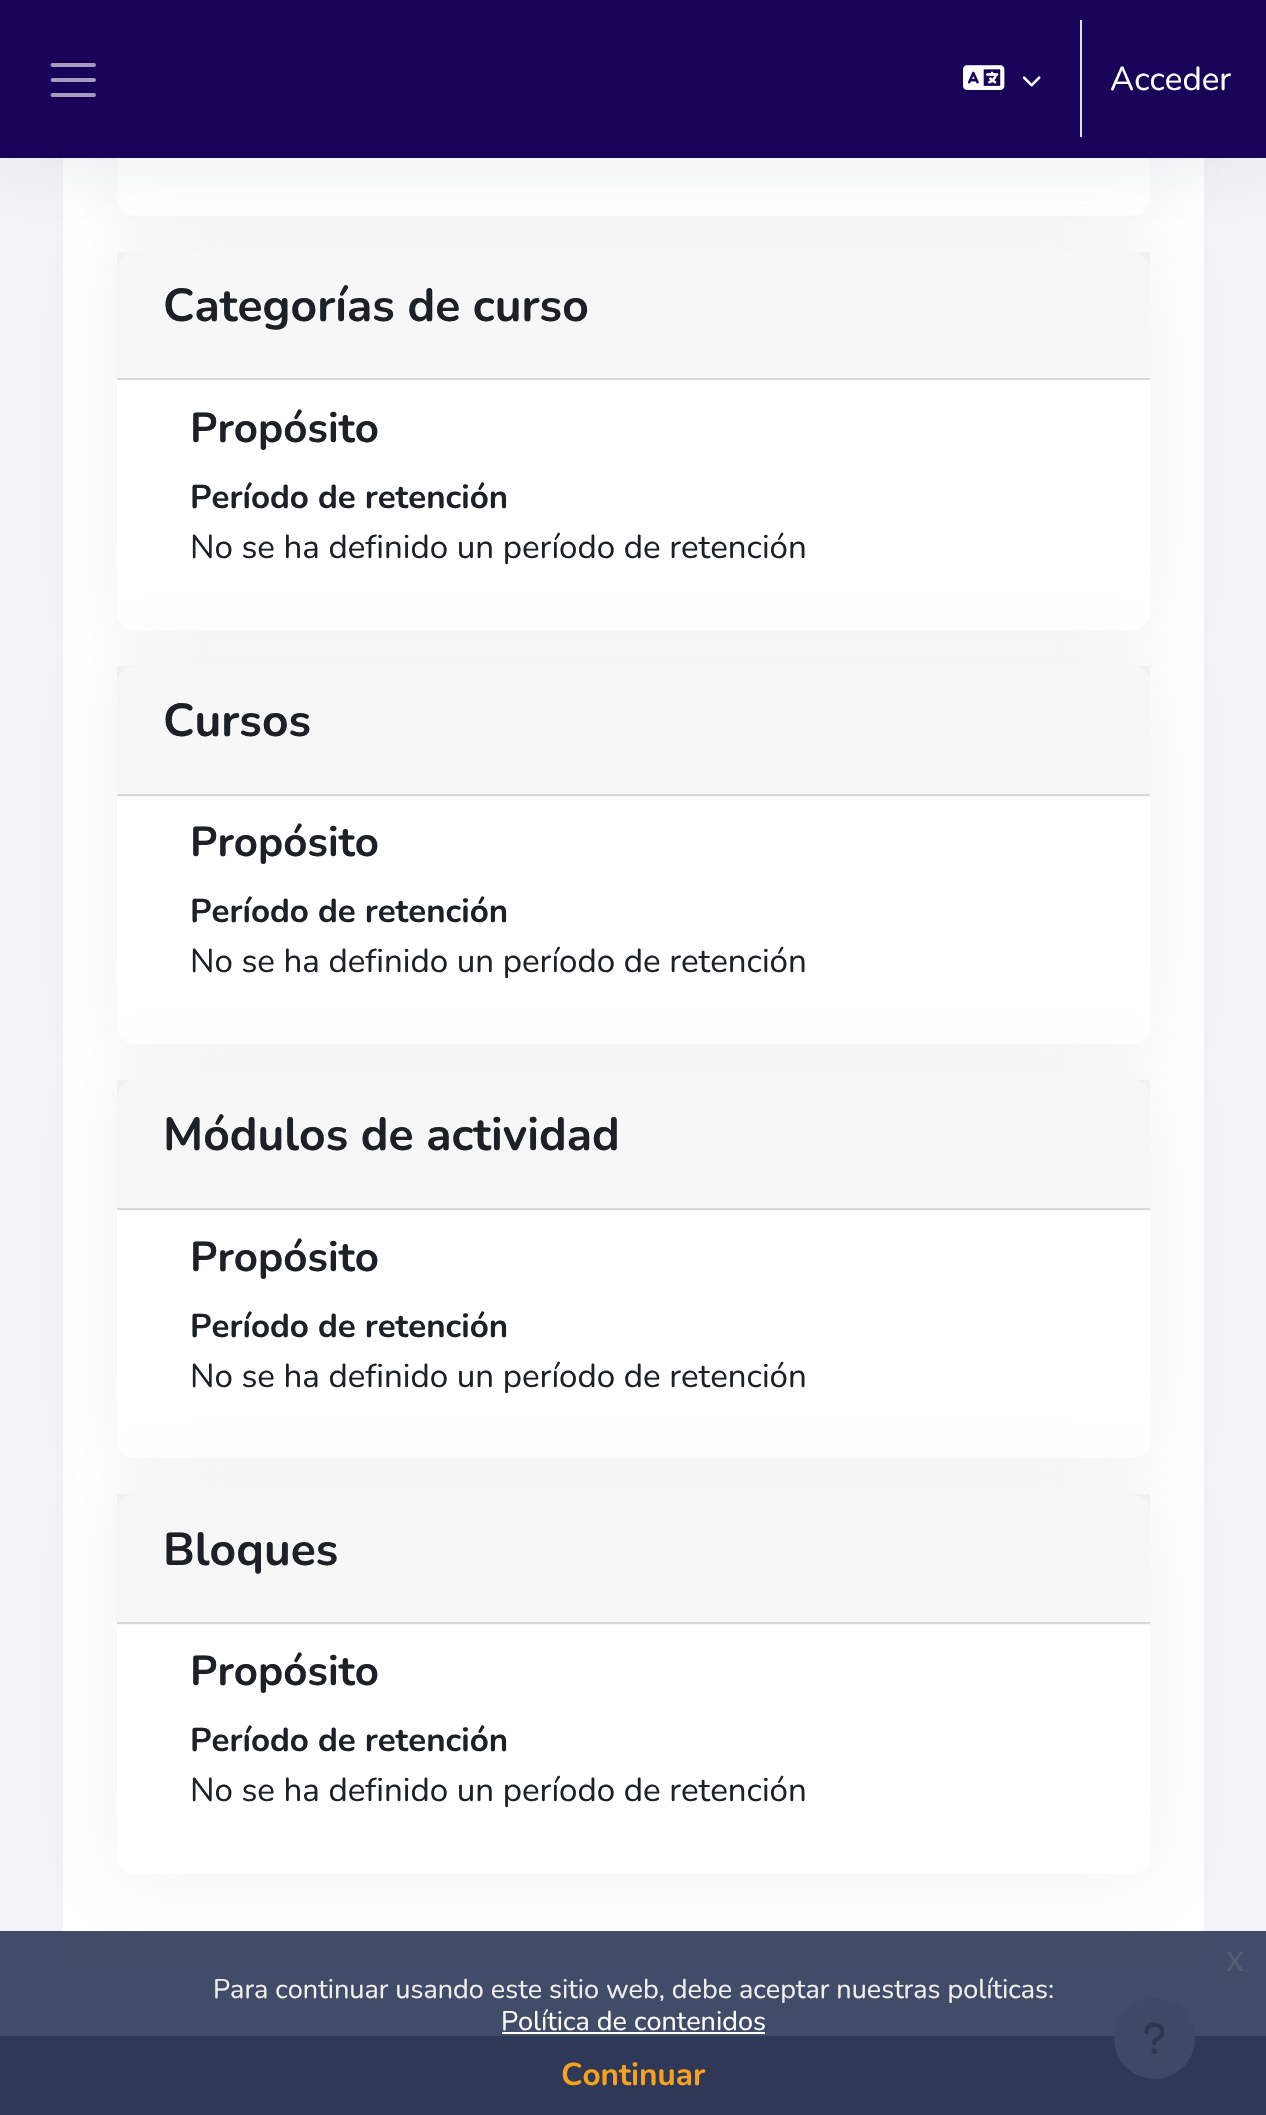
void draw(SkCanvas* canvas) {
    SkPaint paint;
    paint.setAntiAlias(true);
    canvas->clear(0xFFF2F3F7);
    paint.setColor(0xFFFFFFFF);
    canvas->drawRoundRect(SkRect::MakeXYWH(63, -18, 1141, 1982), 18, 18, paint);
    paint.setColor(0x269AA1AB);
    paint.setMaskFilter(SkMaskFilter::MakeBlur(kNormal_SkBlurStyle, 39.5f));
    canvas->drawRoundRect(SkRect::MakeXYWH(117, -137, 1033, 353), 18, 18, paint);
    paint.setMaskFilter(nullptr);
    paint.setColor(0xFFFFFFFF);
    canvas->drawRoundRect(SkRect::MakeXYWH(117, -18, 1033, 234), 18, 18, paint);
    paint.setColor(0x269AA1AB);
    paint.setMaskFilter(SkMaskFilter::MakeBlur(kNormal_SkBlurStyle, 39.5f));
    canvas->drawRoundRect(SkRect::MakeXYWH(117, 252, 1033, 378), 18, 18, paint);
    paint.setMaskFilter(nullptr);
    paint.setColor(0xFFFFFFFF);
    canvas->drawRoundRect(SkRect::MakeXYWH(117, 252, 1033, 378), 18, 18, paint);
    paint.setColor(0x08000000);
    canvas->drawRect(SkRect::MakeXYWH(117, 252, 1033, 126), paint);
    paint.setColor(0x218C98A4);
    paint.setMaskFilter(SkMaskFilter::MakeBlur(kNormal_SkBlurStyle, 27));
    canvas->drawRect(SkRect::MakeXYWH(0, 14, 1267, 157), paint);
    paint.setMaskFilter(nullptr);
    paint.setColor(0xFF190359);
    canvas->drawRect(SkRect::MakeXYWH(0, 0, 1266, 158), paint);
    paint.setStyle(SkPaint::kStroke_Style);
    paint.setStrokeWidth(3.8f);
    paint.setStrokeCap(SkPaint::kRound_Cap);
    paint.setColor(0xFFA39ABD);
    canvas->drawPath(SkPathBuilder().moveTo(52.5f, 65).lineTo(94, 65).moveTo(52.5f, 80).lineTo(94, 80).moveTo(52.5f, 95).lineTo(94, 95).detach(), paint);
    canvas->drawImageRect(SkImages::DeferredFromEncodedData(SkData::MakeFromFileName("img1.png")), SkRect::MakeXYWH(963, 65, 42, 25), SkSamplingOptions());
    canvas->drawImageRect(SkImages::DeferredFromEncodedData(SkData::MakeFromFileName("img2.png")), SkRect::MakeXYWH(1022, 76, 19, 11), SkSamplingOptions());
    paint.setStyle(SkPaint::kFill_Style);
    paint.setColor(0xFFDEE2E6);
    canvas->drawRect(SkRect::MakeXYWH(1080, 20, 2, 117), paint);
    SkFont font1(fontMgr->matchFamilyStyle("Nunito", SkFontStyle::Normal()), 33.1f);
    font1.setSubpixel(true);
    paint.setColor(0xFFFFFFFF);
    canvas->drawString("Acceder", 1110, 90, font1, paint);
    paint.setColor(0xFFD8D8D8);
    canvas->drawRect(SkRect::MakeXYWH(117, 378, 1033, 2), paint);
    SkFont font2(fontMgr->matchFamilyStyle("Nunito", SkFontStyle::Bold()), 46.25f);
    font2.setSubpixel(true);
    paint.setColor(0xFF1D2125);
    canvas->drawString("Categorías de curso", 163, 321, font2, paint);
    SkFont font3(fontMgr->matchFamilyStyle("Nunito", SkFontStyle::Bold()), 42);
    font3.setSubpixel(true);
    canvas->drawString("Propósito", 190, 442, font3, paint);
    SkFont font4(fontMgr->matchFamilyStyle("Nunito", SkFontStyle::Bold()), 33.1f);
    font4.setSubpixel(true);
    canvas->drawString("Período de retención", 190, 508, font4, paint);
    canvas->drawString("No se ha definido un período de retención", 190, 558, font1, paint);
    paint.setColor(0x269AA1AB);
    paint.setMaskFilter(SkMaskFilter::MakeBlur(kNormal_SkBlurStyle, 39.5f));
    canvas->drawRoundRect(SkRect::MakeXYWH(117, 666, 1033, 378), 18, 18, paint);
    paint.setMaskFilter(nullptr);
    paint.setColor(0xFFFFFFFF);
    canvas->drawRoundRect(SkRect::MakeXYWH(117, 666, 1033, 378), 18, 18, paint);
    paint.setColor(0x08000000);
    canvas->drawRect(SkRect::MakeXYWH(117, 666, 1033, 131), paint);
    paint.setColor(0xFFD8D8D8);
    canvas->drawRect(SkRect::MakeXYWH(117, 794, 1033, 2), paint);
    paint.setColor(0xFF1D2125);
    canvas->drawString("Cursos", 163, 736, font2, paint);
    canvas->drawString("Propósito", 190, 856, font3, paint);
    canvas->drawString("Período de retención", 190, 922, font4, paint);
    canvas->drawString("No se ha definido un período de retención", 190, 972, font1, paint);
    paint.setColor(0x269AA1AB);
    paint.setMaskFilter(SkMaskFilter::MakeBlur(kNormal_SkBlurStyle, 39.5f));
    canvas->drawRoundRect(SkRect::MakeXYWH(117, 1080, 1033, 378), 18, 18, paint);
    paint.setMaskFilter(nullptr);
    paint.setColor(0xFFFFFFFF);
    canvas->drawRoundRect(SkRect::MakeXYWH(117, 1080, 1033, 378), 18, 18, paint);
    paint.setColor(0x08000000);
    canvas->drawRect(SkRect::MakeXYWH(117, 1080, 1033, 131), paint);
    paint.setColor(0xFFD8D8D8);
    canvas->drawRect(SkRect::MakeXYWH(117, 1208, 1033, 2), paint);
    paint.setColor(0xFF1D2125);
    canvas->drawString("Módulos de actividad", 163, 1150, font2, paint);
    canvas->drawString("Propósito", 190, 1271, font3, paint);
    canvas->drawString("Período de retención", 190, 1337, font4, paint);
    canvas->drawString("No se ha definido un período de retención", 190, 1387, font1, paint);
    paint.setColor(0x269AA1AB);
    paint.setMaskFilter(SkMaskFilter::MakeBlur(kNormal_SkBlurStyle, 39.5f));
    canvas->drawRoundRect(SkRect::MakeXYWH(117, 1494, 1033, 380), 18, 18, paint);
    paint.setMaskFilter(nullptr);
    paint.setColor(0xFFFFFFFF);
    canvas->drawRoundRect(SkRect::MakeXYWH(117, 1494, 1033, 380), 18, 18, paint);
    paint.setColor(0x08000000);
    canvas->drawRect(SkRect::MakeXYWH(117, 1494, 1033, 131), paint);
    paint.setColor(0xFFD8D8D8);
    canvas->drawRect(SkRect::MakeXYWH(117, 1622, 1033, 2), paint);
    paint.setColor(0xFF1D2125);
    canvas->drawString("Bloques", 163, 1565, font2, paint);
    canvas->drawString("Propósito", 190, 1685, font3, paint);
    canvas->drawString("Período de retención", 190, 1751, font4, paint);
    canvas->drawString("No se ha definido un período de retención", 190, 1801, font1, paint);
    paint.setColor(0xFF2F3857);
    canvas->drawRect(SkRect::MakeXYWH(0, 2036, 1266, 79), paint);
    paint.setColor(0xFFCED4DA);
    canvas->drawCircle(1154.5f, 2038.5f, 40.5f, paint);
    canvas->drawImageRect(SkImages::DeferredFromEncodedData(SkData::MakeFromFileName("img3.png")), SkRect::MakeXYWH(1144, 2022, 21, 33), SkSamplingOptions());
    paint.setColor(0xE62F3857);
    canvas->drawRect(SkRect::MakeXYWH(0, 1931, 1266, 148), paint);
    SkFont font5(fontMgr->matchFamilyStyle("Liberation Sans", SkFontStyle::Normal()), 36);
    font5.setSubpixel(true);
    paint.setColor(0xFF565C73);
    canvas->drawString("x", 1226, 1971, font5, paint);
    SkFont font6(fontMgr->matchFamilyStyle("Nunito", SkFontStyle::Normal()), 27);
    font6.setSubpixel(true);
    paint.setColor(0xFFEFEFEF);
    canvas->drawString("Para continuar usando este sitio web, debe aceptar nuestras políticas:", 213, 1998, font6, paint);
    paint.setColor(0xFFFFFFFF);
    canvas->drawString("Política de contenidos", 501, 2030, font6, paint);
    canvas->drawRect(SkRect::MakeXYWH(502, 2032, 263, 2), paint);
    SkFont font7(fontMgr->matchFamilyStyle("Nunito", SkFontStyle::Bold()), 31.5f);
    font7.setSubpixel(true);
    paint.setColor(0xFFF6A21D);
    canvas->drawString("Continuar", 561, 2085, font7, paint);
}
